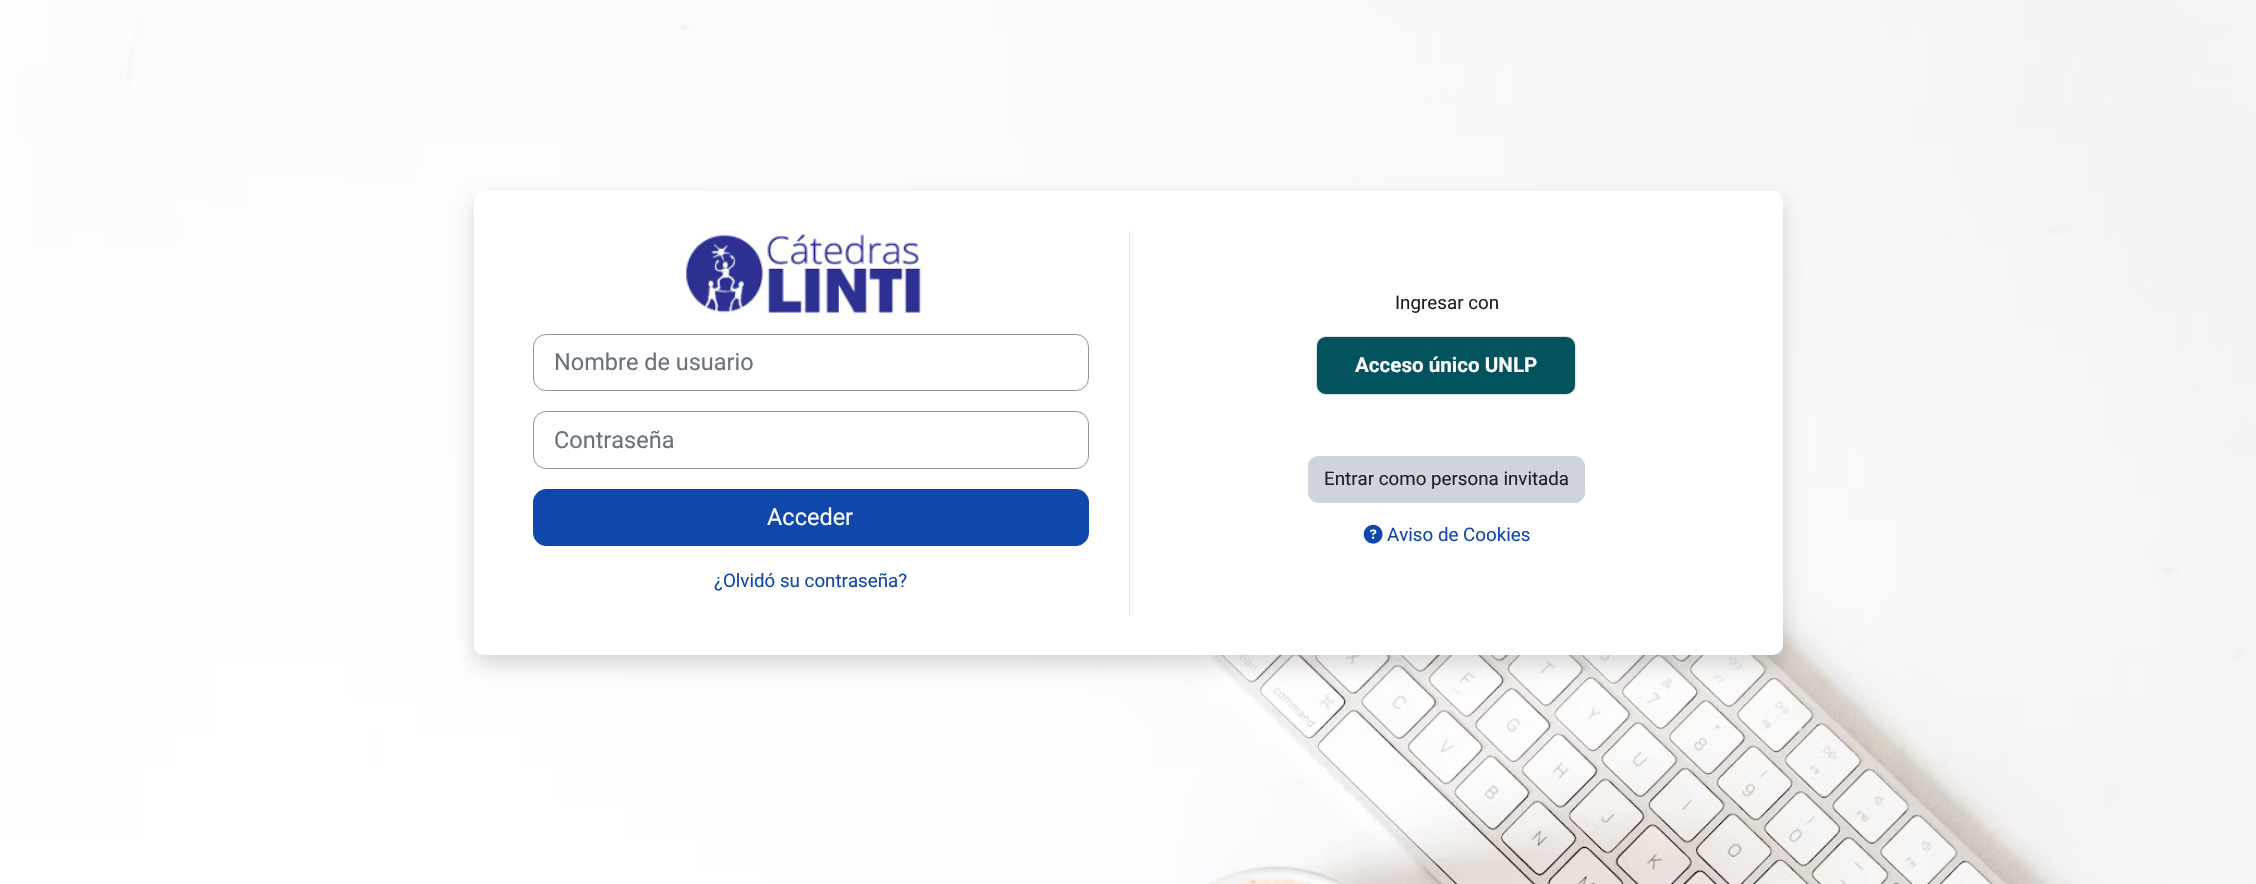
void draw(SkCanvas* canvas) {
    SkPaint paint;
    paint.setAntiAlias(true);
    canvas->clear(0xFFFFFFFF);
    canvas->drawImageRect(SkImages::DeferredFromEncodedData(SkData::MakeFromFileName("img1.png")), SkRect::MakeXYWH(0, 0, 2256, 884), SkSamplingOptions());
    paint.setColor(0x26000000);
    paint.setMaskFilter(SkMaskFilter::MakeBlur(kNormal_SkBlurStyle, 10));
    canvas->drawRoundRect(SkRect::MakeXYWH(474, 201, 1309, 464), 10, 10, paint);
    paint.setMaskFilter(nullptr);
    paint.setColor(0xFFFFFFFF);
    canvas->drawRoundRect(SkRect::MakeXYWH(474, 191, 1309, 464), 10, 10, paint);
    canvas->drawImageRect(SkImages::DeferredFromEncodedData(SkData::MakeFromFileName("img2.png")), SkRect::MakeXYWH(685, 233, 240, 81), SkSamplingOptions());
    paint.setStyle(SkPaint::kStroke_Style);
    paint.setStrokeWidth(1);
    paint.setColor(0xFF8F959E);
    canvas->drawRoundRect(SkRect::MakeXYWH(533.5f, 334.5f, 555, 56), 12.5f, 12.5f, paint);
    SkFont font1(fontMgr->matchFamilyStyle("Roboto", SkFontStyle::Normal()), 23.5f);
    font1.setSubpixel(true);
    paint.setStyle(SkPaint::kFill_Style);
    paint.setColor(0xFF6A737B);
    canvas->drawString("Nombre de usuario", 554, 370, font1, paint);
    paint.setStyle(SkPaint::kStroke_Style);
    paint.setColor(0xFF8F959E);
    canvas->drawRoundRect(SkRect::MakeXYWH(533.5f, 411.5f, 555, 57), 12.5f, 12.5f, paint);
    paint.setStyle(SkPaint::kFill_Style);
    paint.setColor(0xFF6A737B);
    canvas->drawString("Contraseña", 554, 448, font1, paint);
    paint.setColor(0xFF0F47AD);
    canvas->drawRoundRect(SkRect::MakeXYWH(533.5f, 489.5f, 555, 56), 12.5f, 12.5f, paint);
    paint.setStyle(SkPaint::kStroke_Style);
    canvas->drawRoundRect(SkRect::MakeXYWH(533.5f, 489.5f, 555, 56), 12.5f, 12.5f, paint);
    paint.setStyle(SkPaint::kFill_Style);
    paint.setColor(0xFFFFFFFF);
    canvas->drawString("Acceder", 767, 525, font1, paint);
    SkFont font2(fontMgr->matchFamilyStyle("Roboto", SkFontStyle::Normal()), 18.75f);
    font2.setSubpixel(true);
    paint.setColor(0xFF0F47AD);
    canvas->drawString("¿Olvidó su contraseña?", 714, 587, font2, paint);
    paint.setColor(0xFFDEE2E6);
    canvas->drawRect(SkRect::MakeXYWH(1129, 231, 1, 384), paint);
    paint.setColor(0xFF1D2125);
    canvas->drawString("Ingresar con", 1395, 309, font2, paint);
    paint.setColor(0xFF02535E);
    canvas->drawRoundRect(SkRect::MakeXYWH(1316.5f, 336.5f, 259, 58), 9.5f, 9.5f, paint);
    paint.setStyle(SkPaint::kStroke_Style);
    paint.setColor(0xFFDEE2E6);
    canvas->drawRoundRect(SkRect::MakeXYWH(1316.5f, 336.5f, 259, 58), 9.5f, 9.5f, paint);
    SkFont font3(fontMgr->matchFamilyStyle("Roboto", SkFontStyle::Bold()), 20.6f);
    font3.setSubpixel(true);
    paint.setStyle(SkPaint::kFill_Style);
    paint.setColor(0xFFFFFFFF);
    canvas->drawString("Acceso único UNLP", 1355, 372, font3, paint);
    paint.setColor(0xFFCED4DA);
    canvas->drawRoundRect(SkRect::MakeXYWH(1308.5f, 456.5f, 276, 46), 9.5f, 9.5f, paint);
    paint.setStyle(SkPaint::kStroke_Style);
    canvas->drawRoundRect(SkRect::MakeXYWH(1308.5f, 456.5f, 276, 46), 9.5f, 9.5f, paint);
    paint.setStyle(SkPaint::kFill_Style);
    paint.setColor(0xFF1D2125);
    canvas->drawString("Entrar como persona invitada", 1324, 485, font2, paint);
    canvas->drawImageRect(SkImages::DeferredFromEncodedData(SkData::MakeFromFileName("img3.png")), SkRect::MakeXYWH(1363, 524, 20, 20), SkSamplingOptions());
    paint.setColor(0xFF0F47AD);
    canvas->drawString("Aviso de Cookies", 1387, 541, font2, paint);
}
